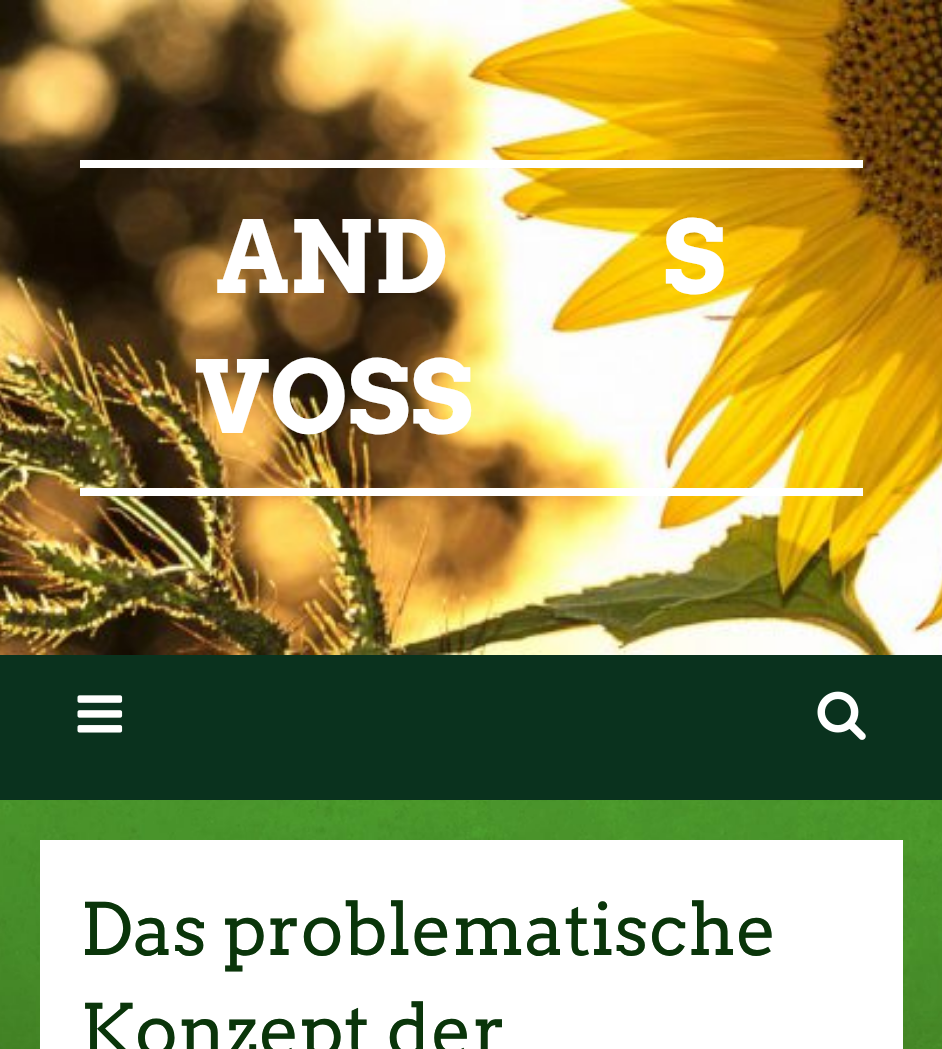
void draw(SkCanvas* canvas) {
    SkPaint paint;
    paint.setAntiAlias(true);
    canvas->clear(0xFFFFFFFF);
    canvas->drawImageRect(SkImages::DeferredFromEncodedData(SkData::MakeFromFileName("img1.png")), SkRect::MakeXYWH(0, 800, 942, 249), SkSamplingOptions());
    canvas->drawImageRect(SkImages::DeferredFromEncodedData(SkData::MakeFromFileName("img2.png")), SkRect::MakeXYWH(0, 0, 942, 655), SkSamplingOptions());
    paint.setColor(0xFFFFFFFF);
    canvas->drawRect(SkRect::MakeXYWH(80, 160, 783, 8), paint);
    canvas->drawRect(SkRect::MakeXYWH(80, 488, 783, 8), paint);
    SkFont font1(fontMgr->matchFamilyStyle("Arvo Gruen", SkFontStyle::Normal()), 100);
    font1.setSubpixel(true);
    canvas->drawString("AND", 216, 293, font1, paint);
    canvas->drawString("S", 663, 293, font1, paint);
    canvas->drawString("VOSS", 195, 433, font1, paint);
    paint.setColor(0xFF0A321E);
    canvas->drawRect(SkRect::MakeXYWH(0, 655, 942, 145), paint);
    canvas->drawImageRect(SkImages::DeferredFromEncodedData(SkData::MakeFromFileName("img3.png")), SkRect::MakeXYWH(77, 695, 46, 38), SkSamplingOptions());
    canvas->drawImageRect(SkImages::DeferredFromEncodedData(SkData::MakeFromFileName("img4.png")), SkRect::MakeXYWH(817, 691, 49, 49), SkSamplingOptions());
    paint.setColor(0xFFFFFFFF);
    canvas->drawRect(SkRect::MakeXYWH(40, 840, 863, 209), paint);
    SkFont font2(fontMgr->matchFamilyStyle("Arvo", SkFontStyle::Normal()), 72);
    font2.setSubpixel(true);
    paint.setColor(0xFF0A350A);
    canvas->drawString("Das problematische", 80, 955, font2, paint);
    canvas->drawString("Konzept der", 80, 1056, font2, paint);
}
